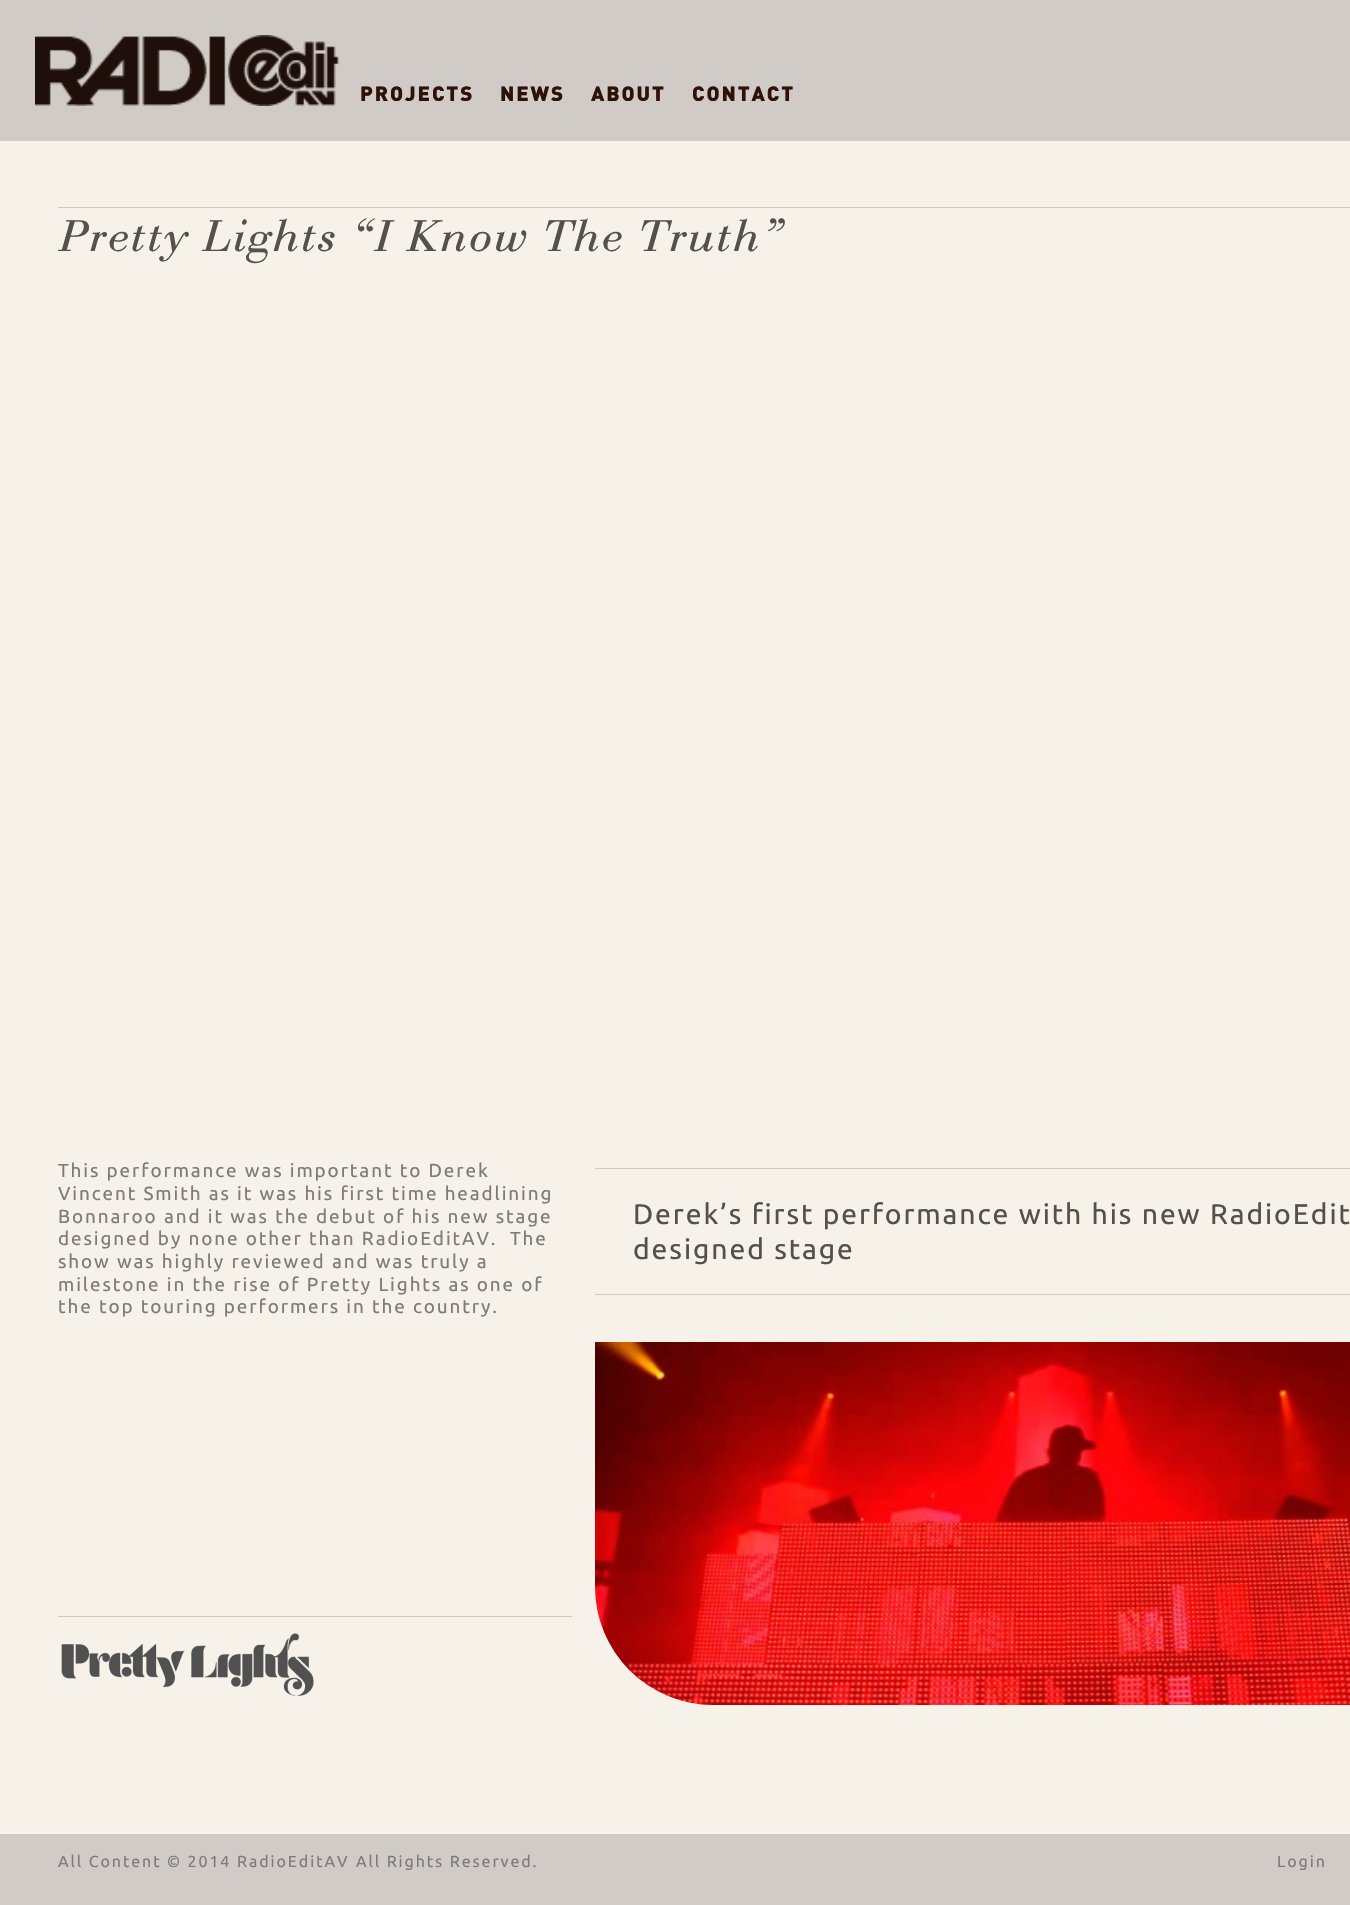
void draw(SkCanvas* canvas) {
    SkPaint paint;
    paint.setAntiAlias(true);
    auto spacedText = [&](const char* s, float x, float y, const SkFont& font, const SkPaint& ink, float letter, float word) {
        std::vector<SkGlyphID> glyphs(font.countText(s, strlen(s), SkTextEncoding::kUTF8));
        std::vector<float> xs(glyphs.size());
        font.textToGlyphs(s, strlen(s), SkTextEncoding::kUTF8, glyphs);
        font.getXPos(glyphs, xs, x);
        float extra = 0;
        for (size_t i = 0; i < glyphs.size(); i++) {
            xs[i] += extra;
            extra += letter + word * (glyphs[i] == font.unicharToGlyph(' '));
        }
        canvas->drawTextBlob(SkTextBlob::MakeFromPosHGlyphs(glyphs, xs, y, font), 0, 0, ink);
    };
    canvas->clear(0xFFF7F2E9);
    paint.setColor(0xFFD1CBC7);
    canvas->drawRect(SkRect::MakeXYWH(0, 0, 1350, 141), paint);
    canvas->drawImageRect(SkImages::DeferredFromEncodedData(SkData::MakeFromFileName("img1.png")), SkRect::MakeXYWH(35, 35, 304, 71), SkSamplingOptions());
    SkFont font1(fontMgr->matchFamilyStyle("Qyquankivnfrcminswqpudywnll", SkFontStyle(900, SkFontStyle::kNormal_Width, SkFontStyle::kUpright_Slant)), 20.5f);
    font1.setSubpixel(true);
    paint.setColor(0xFF2D1208);
    spacedText("PROJECTS", 360, 101, font1, paint, 1.9f, 0);
    spacedText("NEWS", 500, 101, font1, paint, 1.9f, 0);
    spacedText("ABOUT", 591, 101, font1, paint, 1.9f, 0);
    spacedText("CONTACT", 692, 101, font1, paint, 1.9f, 0);
    paint.setColor(0xFFDAC4B2);
    canvas->drawRect(SkRect::MakeXYWH(58, 207, 1292, 1), paint);
    SkFont font2(fontMgr->matchFamilyStyle("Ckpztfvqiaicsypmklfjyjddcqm", SkFontStyle::Italic()), 46.3f);
    font2.setSubpixel(true);
    paint.setColor(0xFF564F4E);
    spacedText("Pretty Lights “I Know The Truth”", 58, 251, font2, paint, 1.9f, 0);
    SkFont font3(fontMgr->matchFamilyStyle("Ubuntu", SkFontStyle::Normal()), 18.9f);
    font3.setSubpixel(true);
    paint.setColor(0xFF7C7C7C);
    spacedText("This performance was important to Derek", 58, 1177, font3, paint, 1.9f, 0);
    spacedText("Vincent Smith as it was his first time headlining", 58, 1200, font3, paint, 1.9f, 0);
    spacedText("Bonnaroo and it was the debut of his new stage", 58, 1223, font3, paint, 1.9f, 0);
    spacedText("designed by none other than RadioEditAV.  The", 58, 1245, font3, paint, 1.9f, 0);
    spacedText("show was highly reviewed and was truly a", 58, 1268, font3, paint, 1.9f, 0);
    spacedText("milestone in the rise of Pretty Lights as one of", 58, 1291, font3, paint, 1.9f, 0);
    spacedText("the top touring performers in the country.", 58, 1313, font3, paint, 1.9f, 0);
    paint.setColor(0xFFDAC4B2);
    canvas->drawRect(SkRect::MakeXYWH(58, 1616, 514, 1), paint);
    canvas->drawImageRect(SkImages::DeferredFromEncodedData(SkData::MakeFromFileName("img2.png")), SkRect::MakeXYWH(61, 1633, 253, 63), SkSamplingOptions());
    canvas->drawRect(SkRect::MakeXYWH(595, 1168, 755, 1), paint);
    canvas->drawRect(SkRect::MakeXYWH(595, 1294, 755, 1), paint);
    SkFont font4(fontMgr->matchFamilyStyle("Ubuntu", SkFontStyle::Normal()), 28.35f);
    font4.setSubpixel(true);
    paint.setColor(0xFF564F4E);
    spacedText("Derek’s first performance with his new RadioEdit", 633, 1224, font4, paint, 1.9f, 0);
    spacedText("designed stage", 633, 1259, font4, paint, 1.9f, 0);
    canvas->drawImageRect(SkImages::DeferredFromEncodedData(SkData::MakeFromFileName("img3.png")), SkRect::MakeXYWH(595, 1342, 755, 363), SkSamplingOptions());
    paint.setColor(0xFFD1CBC7);
    canvas->drawRect(SkRect::MakeXYWH(0, 1834, 1350, 71), paint);
    SkFont font5(fontMgr->matchFamilyStyle("Ubuntu", SkFontStyle::Normal()), 16);
    font5.setSubpixel(true);
    paint.setColor(0xFF7C7C7C);
    spacedText("All Content © 2014", 58, 1867, font5, paint, 1.9f, 0);
    spacedText("RadioEditAV", 237, 1867, font5, paint, 1.9f, 0);
    spacedText("All Rights Reserved.", 356, 1867, font5, paint, 1.9f, 0);
    spacedText("Login", 1277, 1867, font5, paint, 1.9f, 0);
}
